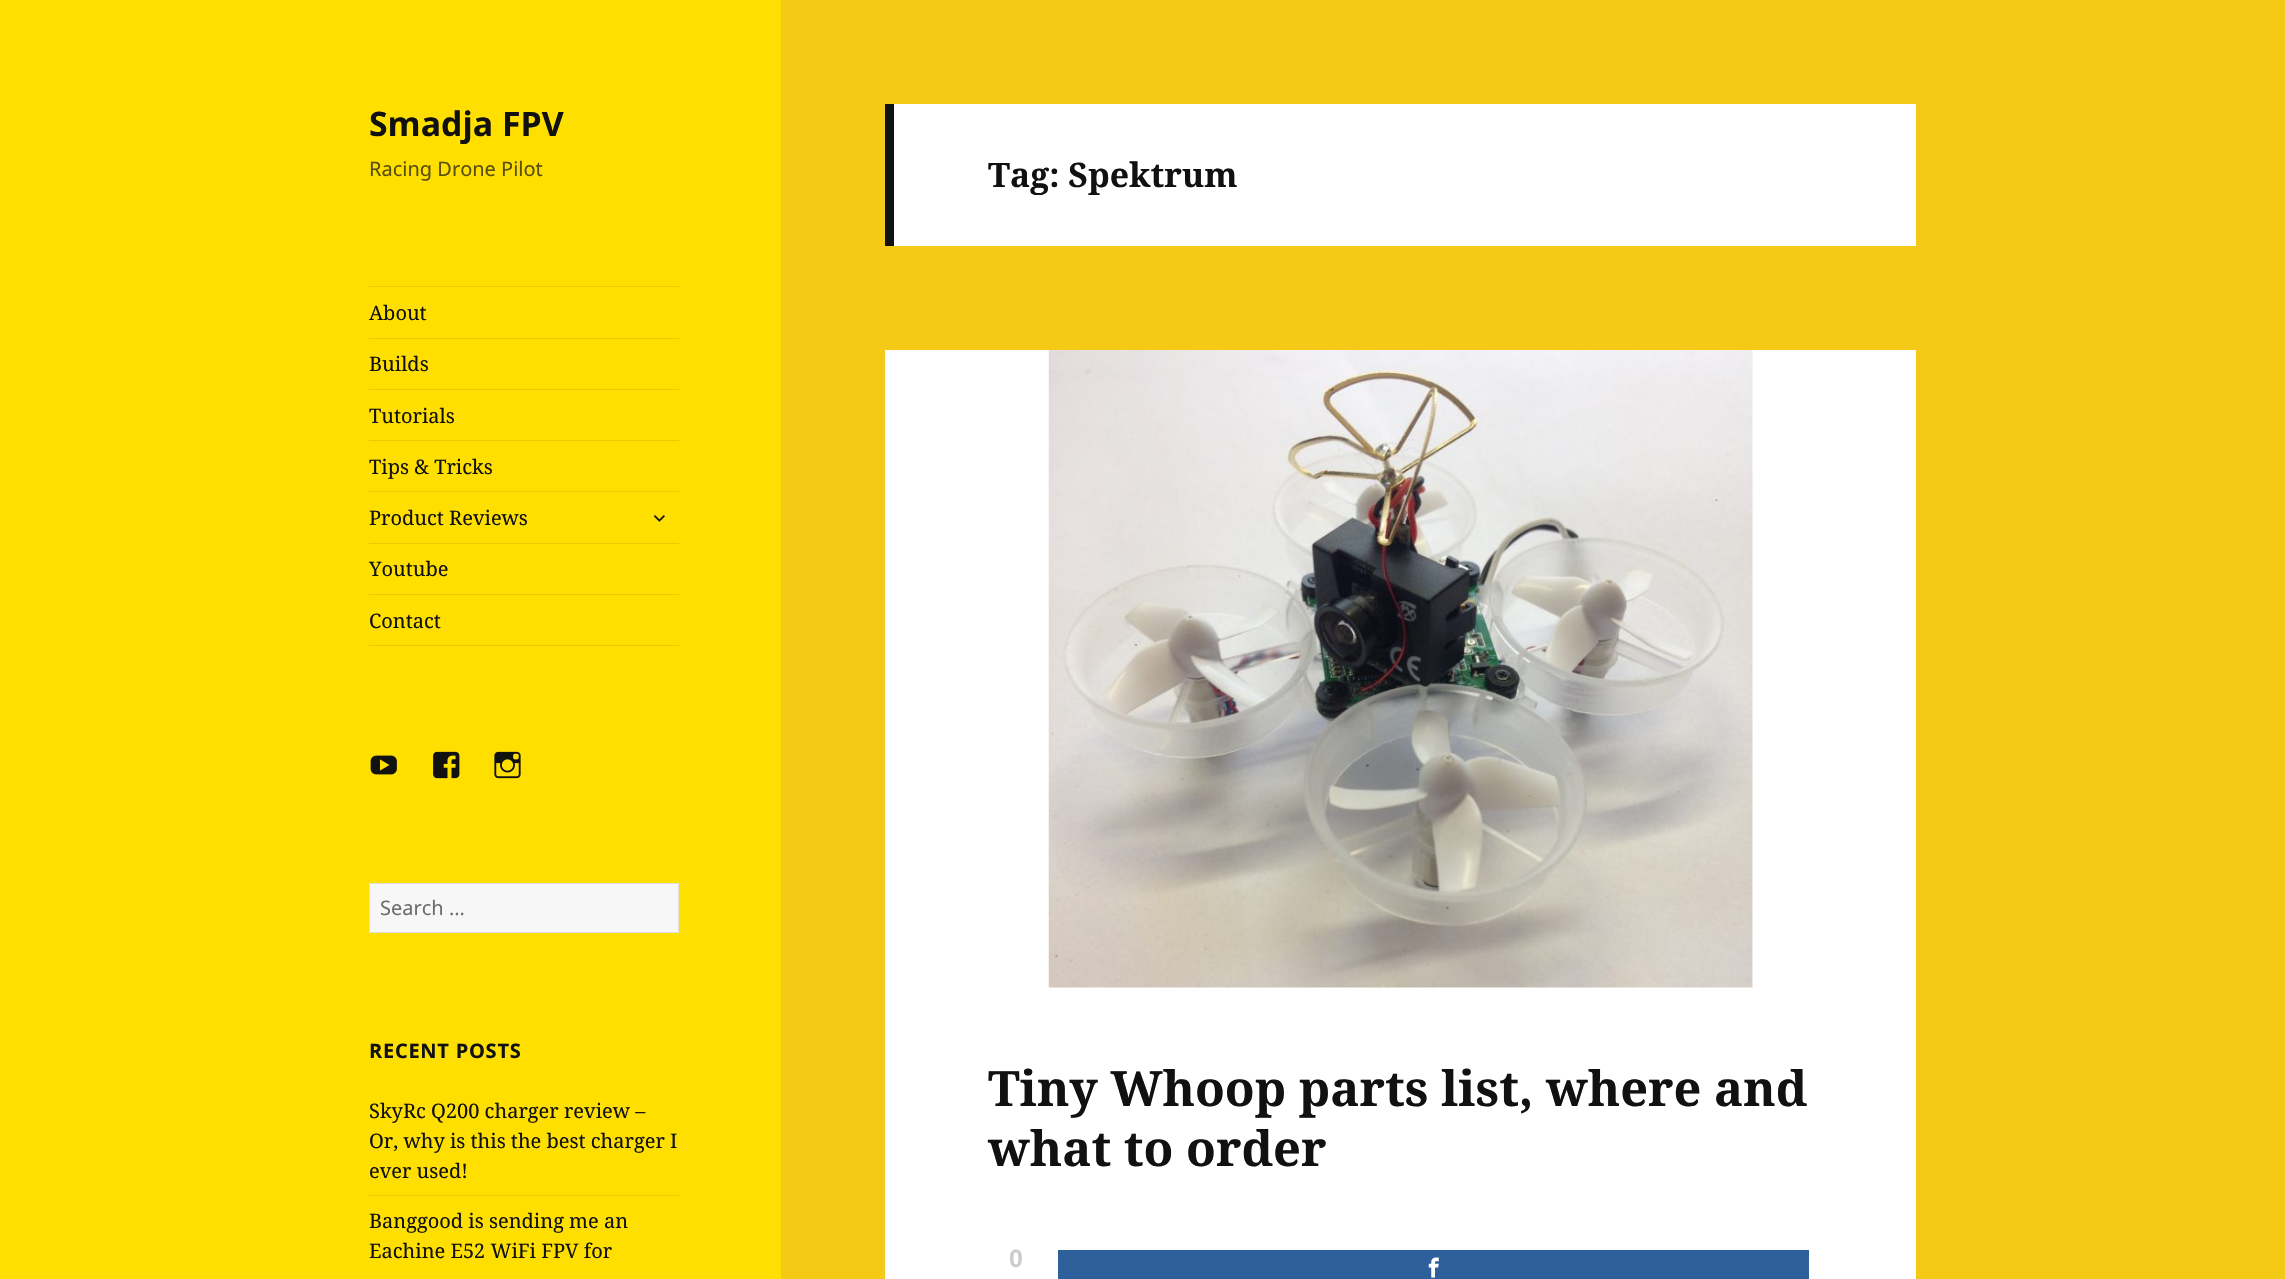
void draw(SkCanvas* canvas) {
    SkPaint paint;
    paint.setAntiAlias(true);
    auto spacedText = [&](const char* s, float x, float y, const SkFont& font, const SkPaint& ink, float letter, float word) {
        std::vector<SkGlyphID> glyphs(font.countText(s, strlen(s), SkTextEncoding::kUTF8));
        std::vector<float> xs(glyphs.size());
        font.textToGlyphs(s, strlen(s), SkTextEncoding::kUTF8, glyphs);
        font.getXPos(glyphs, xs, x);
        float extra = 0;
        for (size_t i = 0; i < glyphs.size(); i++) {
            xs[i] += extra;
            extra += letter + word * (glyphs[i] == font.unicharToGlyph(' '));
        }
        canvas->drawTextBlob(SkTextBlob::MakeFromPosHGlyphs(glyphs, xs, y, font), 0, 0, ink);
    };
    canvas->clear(0xFFF4CA16);
    paint.setColor(0xFFFFDF00);
    canvas->drawRect(SkRect::MakeXYWH(0, 0, 781, 1279), paint);
    SkFont font1(fontMgr->matchFamilyStyle("Noto Sans", SkFontStyle::Bold()), 33.75f);
    font1.setSubpixel(true);
    paint.setColor(0xFF111111);
    canvas->drawString("Smadja FPV", 369, 136, font1, paint);
    SkFont font2(fontMgr->matchFamilyStyle("Noto Sans", SkFontStyle::Normal()), 20);
    font2.setSubpixel(true);
    paint.setColor(0xFF584F0C);
    canvas->drawString("Racing Drone Pilot", 369, 176, font2, paint);
    paint.setColor(0xFFE7CA02);
    canvas->drawRect(SkRect::MakeXYWH(369, 286, 310, 1), paint);
    canvas->drawRect(SkRect::MakeXYWH(369, 645, 310, 1), paint);
    SkFont font3(fontMgr->matchFamilyStyle("Noto Serif", SkFontStyle::Normal()), 20);
    font3.setSubpixel(true);
    paint.setColor(0xFF111111);
    canvas->drawString("About", 369, 320, font3, paint);
    paint.setColor(0xFFE7CA02);
    canvas->drawRect(SkRect::MakeXYWH(369, 338, 310, 1), paint);
    paint.setColor(0xFF111111);
    canvas->drawString("Builds", 369, 371, font3, paint);
    paint.setColor(0xFFE7CA02);
    canvas->drawRect(SkRect::MakeXYWH(369, 389, 310, 1), paint);
    paint.setColor(0xFF111111);
    canvas->drawString("Tutorials", 369, 423, font3, paint);
    paint.setColor(0xFFE7CA02);
    canvas->drawRect(SkRect::MakeXYWH(369, 440, 310, 1), paint);
    paint.setColor(0xFF111111);
    canvas->drawString("Tips & Tricks", 369, 474, font3, paint);
    paint.setColor(0xFFE7CA02);
    canvas->drawRect(SkRect::MakeXYWH(369, 491, 310, 1), paint);
    paint.setColor(0xFF111111);
    canvas->drawString("Product Reviews", 369, 525, font3, paint);
    canvas->drawImageRect(SkImages::DeferredFromEncodedData(SkData::MakeFromFileName("img1.png")), SkRect::MakeXYWH(653, 515, 12, 7), SkSamplingOptions());
    paint.setColor(0xFFE7CA02);
    canvas->drawRect(SkRect::MakeXYWH(369, 543, 310, 1), paint);
    paint.setColor(0xFF111111);
    canvas->drawString("Youtube", 369, 576, font3, paint);
    paint.setColor(0xFFE7CA02);
    canvas->drawRect(SkRect::MakeXYWH(369, 594, 310, 1), paint);
    paint.setColor(0xFF111111);
    canvas->drawString("Contact", 369, 628, font3, paint);
    canvas->drawImageRect(SkImages::DeferredFromEncodedData(SkData::MakeFromFileName("img2.png")), SkRect::MakeXYWH(370, 755, 27, 20), SkSamplingOptions());
    canvas->drawImageRect(SkImages::DeferredFromEncodedData(SkData::MakeFromFileName("img3.png")), SkRect::MakeXYWH(433, 751, 27, 28), SkSamplingOptions());
    canvas->drawImageRect(SkImages::DeferredFromEncodedData(SkData::MakeFromFileName("img4.png")), SkRect::MakeXYWH(494, 751, 27, 28), SkSamplingOptions());
    paint.setColor(0xFFF7F7F7);
    canvas->drawRect(SkRect::MakeXYWH(369.5f, 883.5f, 309, 49), paint);
    paint.setStyle(SkPaint::kStroke_Style);
    paint.setStrokeWidth(1);
    paint.setColor(0xFFE0E0E0);
    canvas->drawRect(SkRect::MakeXYWH(369.5f, 883.5f, 309, 49), paint);
    paint.setStyle(SkPaint::kFill_Style);
    paint.setColor(0xFF6E6E6E);
    canvas->drawString("Search …", 380, 915, font2, paint);
    SkFont font4(fontMgr->matchFamilyStyle("Noto Sans", SkFontStyle::Bold()), 20);
    font4.setSubpixel(true);
    paint.setColor(0xFF111111);
    spacedText("RECENT POSTS", 369, 1058, font4, paint, 0.75f, 0);
    canvas->drawString("SkyRc Q200 charger review –", 369, 1118, font3, paint);
    canvas->drawString("Or, why is this the best charger I", 369, 1148, font3, paint);
    canvas->drawString("ever used!", 369, 1178, font3, paint);
    paint.setColor(0xFFE7CA02);
    canvas->drawRect(SkRect::MakeXYWH(369, 1195, 310, 1), paint);
    paint.setColor(0xFF111111);
    canvas->drawString("Banggood is sending me an", 369, 1228, font3, paint);
    canvas->drawString("Eachine E52 WiFi FPV for", 369, 1258, font3, paint);
    paint.setColor(0xFFFFFFFF);
    canvas->drawRect(SkRect::MakeXYWH(894, 104, 1022, 142), paint);
    paint.setColor(0xFF111111);
    canvas->drawRect(SkRect::MakeXYWH(885, 104, 9, 142), paint);
    SkFont font5(fontMgr->matchFamilyStyle("Noto Serif", SkFontStyle::Bold()), 33.75f);
    font5.setSubpixel(true);
    canvas->drawString("Tag: Spektrum", 988, 187, font5, paint);
    paint.setColor(0xFFFFFFFF);
    canvas->drawRect(SkRect::MakeXYWH(885, 350, 1031, 929), paint);
    canvas->drawImageRect(SkImages::DeferredFromEncodedData(SkData::MakeFromFileName("img5.png")), SkRect::MakeXYWH(1048, 350, 705, 638), SkSamplingOptions());
    SkFont font6(fontMgr->matchFamilyStyle("Noto Serif", SkFontStyle::Bold()), 48.75f);
    font6.setSubpixel(true);
    paint.setColor(0xFF111111);
    canvas->drawString("Tiny Whoop parts list, where and", 988, 1106, font6, paint);
    canvas->drawString("what to order", 988, 1166, font6, paint);
    SkFont font7(fontMgr->matchFamilyStyle("Liberation Sans", SkFontStyle::Bold()), 25);
    font7.setSubpixel(true);
    paint.setColor(0xFFCCCCCC);
    canvas->drawString("0", 1009, 1267, font7, paint);
    paint.setColor(0xFF2D5F9A);
    canvas->drawRect(SkRect::MakeXYWH(1058, 1250, 751, 29), paint);
    canvas->drawImageRect(SkImages::DeferredFromEncodedData(SkData::MakeFromFileName("img6.png")), SkRect::MakeXYWH(1428, 1257, 11, 21), SkSamplingOptions());
}
